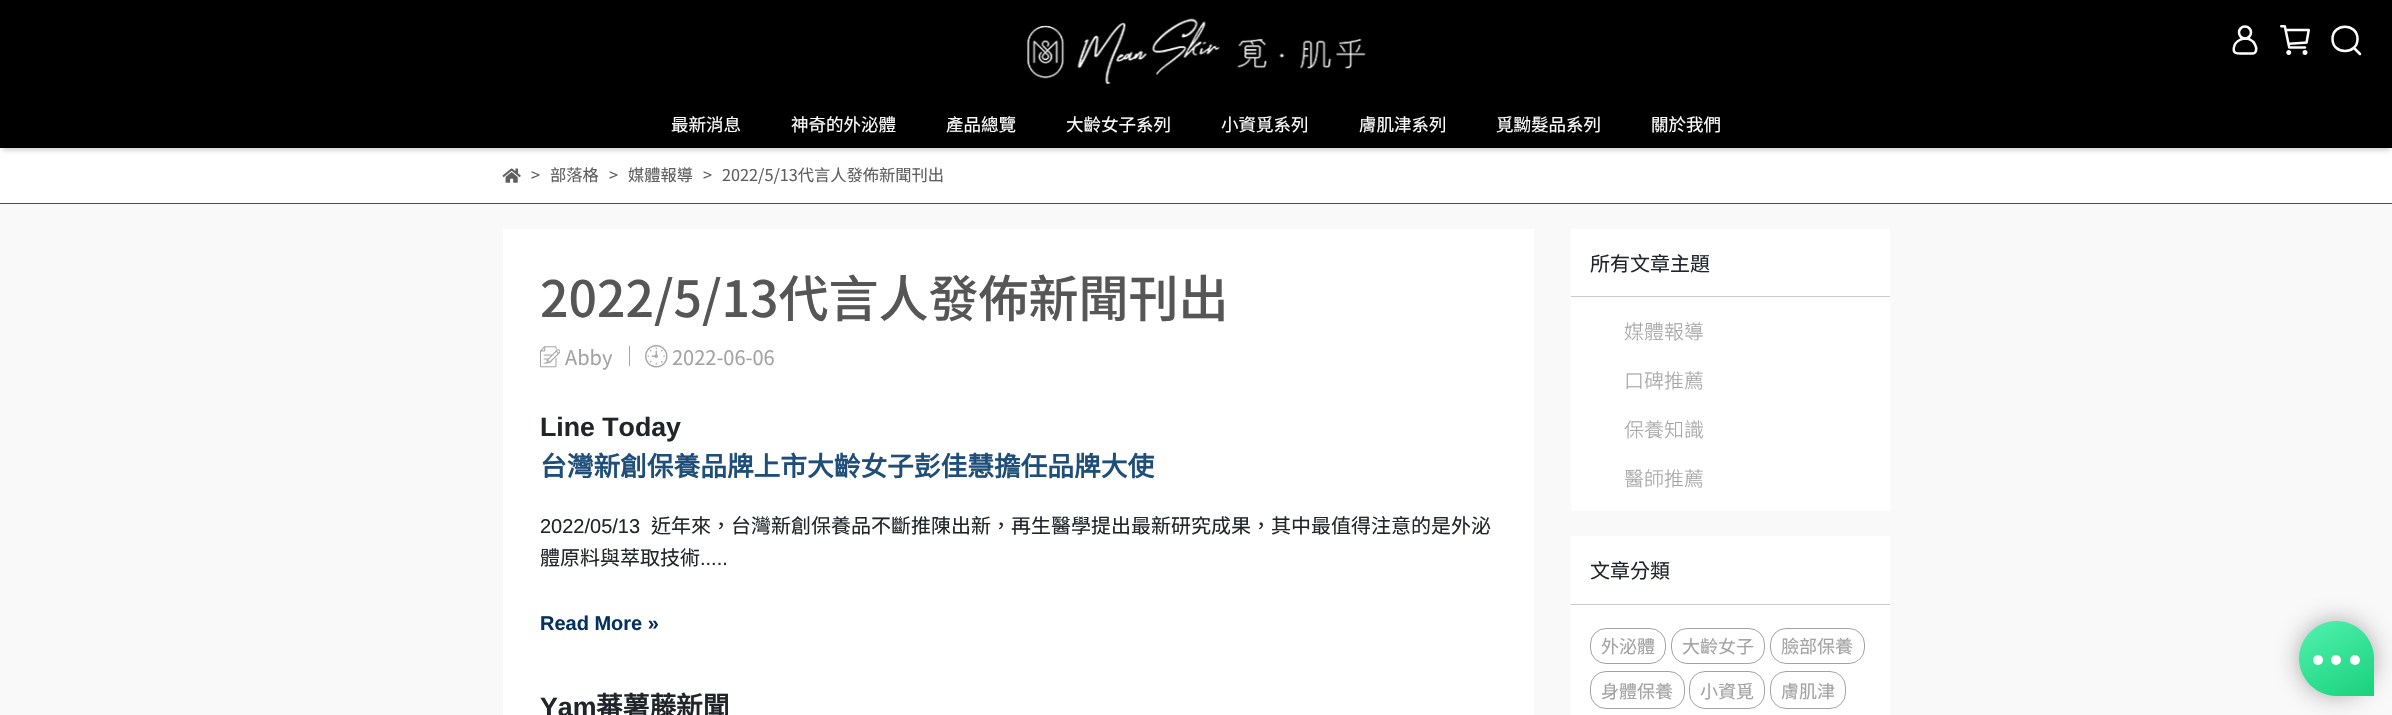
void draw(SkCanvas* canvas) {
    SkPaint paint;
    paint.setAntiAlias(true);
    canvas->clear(0xFFFFFFFF);
    paint.setColor(0xFF000000);
    canvas->drawRect(SkRect::MakeXYWH(0, 0, 2392, 101), paint);
    canvas->drawImageRect(SkImages::DeferredFromEncodedData(SkData::MakeFromFileName("img1.png")), SkRect::MakeXYWH(1027, 18, 339, 66), SkSamplingOptions());
    paint.setStyle(SkPaint::kStroke_Style);
    paint.setStrokeWidth(2.5f);
    paint.setColor(0xFFFFFFFF);
    canvas->drawCircle(2245, 32.5f, 6, paint);
    canvas->drawPath(SkPathBuilder().moveTo(2252, 53.5f).lineTo(2242.5f, 53.5f).cubicTo(2237, 53.5f, 2232.5f, 54, 2234, 47).cubicTo(2234.5f, 43.5f, 2237.5f, 41, 2240.5f, 39.5f).cubicTo(2255, 34, 2261, 54, 2252, 53.5f).close().detach(), paint);
    canvas->drawImageRect(SkImages::DeferredFromEncodedData(SkData::MakeFromFileName("img2.png")), SkRect::MakeXYWH(2280, 25, 30, 30), SkSamplingOptions());
    paint.setStrokeCap(SkPaint::kRound_Cap);
    paint.setStrokeJoin(SkPaint::kRound_Join);
    canvas->drawPath(SkPathBuilder().moveTo(2357.5f, 39).cubicTo(2357.5f, 55, 2332.5f, 55, 2332.5f, 39).cubicTo(2332.5f, 22.5f, 2357.5f, 22.5f, 2357.5f, 39).close().moveTo(2355, 49).lineTo(2360, 54).detach(), paint);
    paint.setStyle(SkPaint::kFill_Style);
    paint.setColor(0x33000000);
    paint.setMaskFilter(SkMaskFilter::MakeBlur(kNormal_SkBlurStyle, 2.5f));
    canvas->drawRect(SkRect::MakeXYWH(3, 109, 2387, 41), paint);
    paint.setMaskFilter(nullptr);
    paint.setColor(0xFF000000);
    canvas->drawRect(SkRect::MakeXYWH(0, 101, 2392, 47), paint);
    SkFont font1(fontMgr->matchFamilyStyle("Noto Sans TC", SkFontStyle::Normal()), 17.5f);
    font1.setSubpixel(true);
    paint.setColor(0xFFFFFFFF);
    canvas->drawString("最新消息", 671, 131, font1, paint);
    canvas->drawString("神奇的外泌體", 791, 131, font1, paint);
    canvas->drawString("產品總覽", 946, 131, font1, paint);
    canvas->drawString("大齡女子系列", 1066, 131, font1, paint);
    canvas->drawString("小資覓系列", 1221, 131, font1, paint);
    canvas->drawString("膚肌津系列", 1359, 131, font1, paint);
    canvas->drawString("覓黝髮品系列", 1496, 131, font1, paint);
    canvas->drawString("關於我們", 1651, 131, font1, paint);
    paint.setColor(0xFF4D4D4D);
    canvas->drawRect(SkRect::MakeXYWH(0, 203, 2392, 1), paint);
    canvas->drawImageRect(SkImages::DeferredFromEncodedData(SkData::MakeFromFileName("img3.png")), SkRect::MakeXYWH(502, 168, 19, 15), SkSamplingOptions());
    SkFont font2(fontMgr->matchFamilyStyle("Noto Sans TC", SkFontStyle::Normal()), 16.25f);
    font2.setSubpixel(true);
    paint.setColor(0xFF5E5E5E);
    canvas->drawString(">", 531, 181, font2, paint);
    canvas->drawString("部落格", 550, 181, font2, paint);
    canvas->drawString(">", 609, 181, font2, paint);
    canvas->drawString("媒體報導", 628, 181, font2, paint);
    canvas->drawString(">", 703, 181, font2, paint);
    canvas->drawString("2022/5/13代言人發佈新聞刊出", 722, 181, font2, paint);
    paint.setColor(0xFFF9F9F9);
    canvas->drawRect(SkRect::MakeXYWH(0, 204, 2392, 511), paint);
    paint.setColor(0xFFFFFFFF);
    canvas->drawRect(SkRect::MakeXYWH(503, 229, 1031, 486), paint);
    SkFont font3(fontMgr->matchFamilyStyle("Noto Sans TC", SkFontStyle(500, SkFontStyle::kNormal_Width, SkFontStyle::kUpright_Slant)), 50);
    font3.setSubpixel(true);
    paint.setColor(0xFF565656);
    canvas->drawString("2022/5/13代言人發佈新聞刊出", 540, 317, font3, paint);
    canvas->drawImageRect(SkImages::DeferredFromEncodedData(SkData::MakeFromFileName("img4.png")), SkRect::MakeXYWH(540, 346, 20, 22), SkSamplingOptions());
    SkFont font4(fontMgr->matchFamilyStyle("Noto Sans TC", SkFontStyle::Normal()), 20);
    font4.setSubpixel(true);
    paint.setColor(0xFFA3A3A3);
    canvas->drawString("Abby", 565, 365, font4, paint);
    canvas->drawRect(SkRect::MakeXYWH(629, 346, 1, 20), paint);
    canvas->drawImageRect(SkImages::DeferredFromEncodedData(SkData::MakeFromFileName("img5.png")), SkRect::MakeXYWH(645, 345, 23, 23), SkSamplingOptions());
    canvas->drawString("2022-06-06", 672, 365, font4, paint);
    SkFont font5(fontMgr->matchFamilyStyle("Liberation Sans", SkFontStyle::Bold()), 26.7f);
    font5.setSubpixel(true);
    paint.setColor(0xFF212529);
    canvas->drawString("Line Today", 540, 436, font5, paint);
    SkFont font6(fontMgr->matchFamilyStyle("Noto Sans CJK TC", SkFontStyle::Bold()), 26.7f);
    font6.setSubpixel(true);
    paint.setColor(0xFF1F4E79);
    canvas->drawString("台灣新創保養品牌上市大齡女子彭佳慧擔任品牌大使", 540, 476, font6, paint);
    SkFont font7(fontMgr->matchFamilyStyle("Liberation Sans", SkFontStyle::Normal()), 20);
    font7.setSubpixel(true);
    paint.setColor(0xFF212529);
    canvas->drawString("2022/05/13", 540, 533, font7, paint);
    SkFont font8(fontMgr->matchFamilyStyle("Noto Sans CJK TC", SkFontStyle::Normal()), 20);
    font8.setSubpixel(true);
    canvas->drawString("近年來，台灣新創保養品不斷推陳出新，再生醫學提出最新研究成果，其中最值得注意的是外泌", 651, 533, font8, paint);
    canvas->drawString("體原料與萃取技術", 540, 565, font8, paint);
    canvas->drawString(".....", 700, 565, font7, paint);
    SkFont font9(fontMgr->matchFamilyStyle("Liberation Sans", SkFontStyle::Bold()), 20);
    font9.setSubpixel(true);
    paint.setColor(0xFF033160);
    canvas->drawString("Read More »", 540, 630, font9, paint);
    paint.setColor(0xFF212529);
    canvas->drawString("Yam", 540, 716, font5, paint);
    canvas->drawString("蕃薯藤新聞", 596, 716, font6, paint);
    paint.setColor(0xFFFFFFFF);
    canvas->drawRect(SkRect::MakeXYWH(1571, 229, 319, 282), paint);
    paint.setColor(0xFFCCCCCC);
    canvas->drawRect(SkRect::MakeXYWH(1571, 296, 319, 1), paint);
    paint.setColor(0xFF212529);
    canvas->drawString("所有文章主題", 1590, 271, font4, paint);
    SkFont font10(fontMgr->matchFamilyStyle("Noto Sans TC", SkFontStyle(300, SkFontStyle::kNormal_Width, SkFontStyle::kUpright_Slant)), 20);
    font10.setSubpixel(true);
    paint.setColor(0xFFA3A3A3);
    canvas->drawString("媒體報導", 1624, 339, font10, paint);
    canvas->drawString("口碑推薦", 1624, 388, font10, paint);
    canvas->drawString("保養知識", 1624, 437, font10, paint);
    canvas->drawString("醫師推薦", 1624, 486, font10, paint);
    paint.setColor(0xFFFFFFFF);
    canvas->drawRect(SkRect::MakeXYWH(1571, 536, 319, 179), paint);
    paint.setColor(0xFFCCCCCC);
    canvas->drawRect(SkRect::MakeXYWH(1571, 604, 319, 1), paint);
    paint.setColor(0xFF212529);
    canvas->drawString("文章分類", 1590, 578, font4, paint);
    paint.setStyle(SkPaint::kStroke_Style);
    paint.setStrokeWidth(1);
    paint.setStrokeCap(SkPaint::kButt_Cap);
    paint.setStrokeJoin(SkPaint::kMiter_Join);
    paint.setColor(0xFFA3A3A3);
    canvas->drawRoundRect(SkRect::MakeXYWH(1590.5f, 628.5f, 75, 35), 15.5f, 15.5f, paint);
    SkFont font11(fontMgr->matchFamilyStyle("Noto Sans TC", SkFontStyle::Normal()), 18);
    font11.setSubpixel(true);
    paint.setStyle(SkPaint::kFill_Style);
    canvas->drawString("外泌體", 1601, 653, font11, paint);
    paint.setStyle(SkPaint::kStroke_Style);
    canvas->drawRoundRect(SkRect::MakeXYWH(1671.5f, 628.5f, 93, 35), 15.5f, 15.5f, paint);
    paint.setStyle(SkPaint::kFill_Style);
    canvas->drawString("大齡女子", 1682, 653, font11, paint);
    paint.setStyle(SkPaint::kStroke_Style);
    canvas->drawRoundRect(SkRect::MakeXYWH(1770.5f, 628.5f, 94, 35), 15.5f, 15.5f, paint);
    paint.setStyle(SkPaint::kFill_Style);
    canvas->drawString("臉部保養", 1781, 653, font11, paint);
    paint.setStyle(SkPaint::kStroke_Style);
    canvas->drawRoundRect(SkRect::MakeXYWH(1590.5f, 671.5f, 94, 37), 15.5f, 15.5f, paint);
    paint.setStyle(SkPaint::kFill_Style);
    canvas->drawString("身體保養", 1601, 698, font11, paint);
    paint.setStyle(SkPaint::kStroke_Style);
    canvas->drawRoundRect(SkRect::MakeXYWH(1689.5f, 671.5f, 75, 37), 15.5f, 15.5f, paint);
    paint.setStyle(SkPaint::kFill_Style);
    canvas->drawString("小資覓", 1700, 698, font11, paint);
    paint.setStyle(SkPaint::kStroke_Style);
    canvas->drawRoundRect(SkRect::MakeXYWH(1770.5f, 671.5f, 75, 37), 15.5f, 15.5f, paint);
    paint.setStyle(SkPaint::kFill_Style);
    canvas->drawString("膚肌津", 1781, 698, font11, paint);
    paint.setColor(0xA3777777);
    paint.setMaskFilter(SkMaskFilter::MakeBlur(kNormal_SkBlurStyle, 12.5f));
    canvas->drawRoundRect(SkRect::MakeXYWH(2299, 621, 75, 75), 37.5f, 37.5f, paint);
    paint.setMaskFilter(nullptr);
    {
        const SkColor colors[] = {0xFF19D17C, 0xFF52F2AF};
        const float stops[] = {0, 1};
        const SkPoint ends[] = {{2362, 703}, {2311, 614}};
        paint.setShader(SkGradientShader::MakeLinear(ends, colors, stops, 2, SkTileMode::kClamp));
        paint.setAlpha(255);
    }
    canvas->drawPath(SkPathBuilder().moveTo(2336.5f, 621).cubicTo(2357, 621, 2374, 638, 2374, 658.5f).lineTo(2374, 696).lineTo(2336.5f, 696).cubicTo(2316, 696, 2299, 679, 2299, 658.5f).cubicTo(2299, 638, 2316, 621, 2336.5f, 621).close().detach(), paint);
    paint.setShader(nullptr);
    paint.setColor(0xFFFFFFFF);
    canvas->drawCircle(2318, 660, 5, paint);
    canvas->drawCircle(2336, 660, 5, paint);
    canvas->drawCircle(2355, 660, 5, paint);
}
